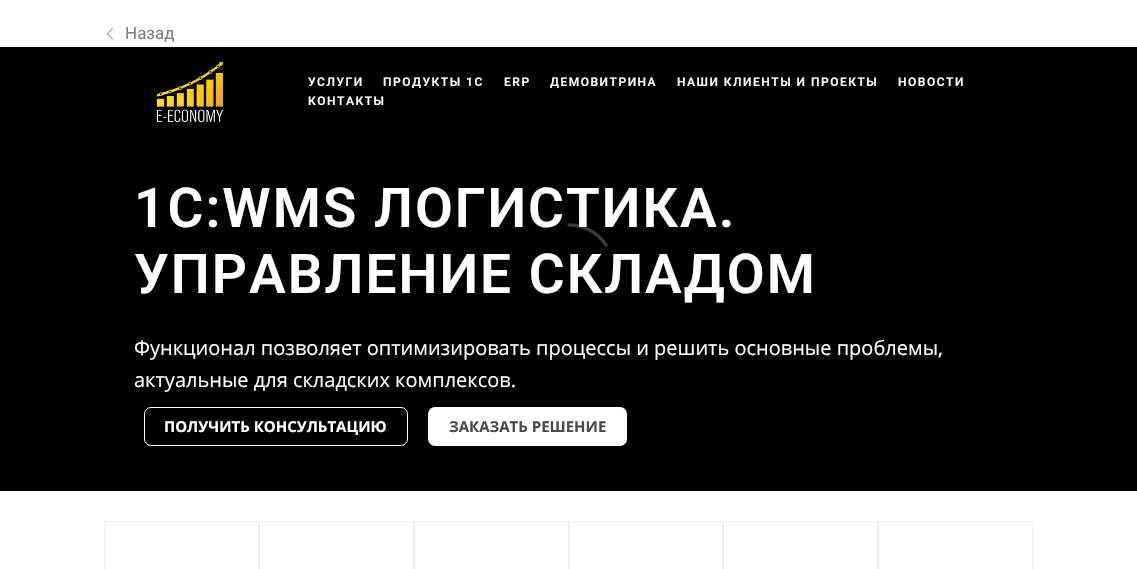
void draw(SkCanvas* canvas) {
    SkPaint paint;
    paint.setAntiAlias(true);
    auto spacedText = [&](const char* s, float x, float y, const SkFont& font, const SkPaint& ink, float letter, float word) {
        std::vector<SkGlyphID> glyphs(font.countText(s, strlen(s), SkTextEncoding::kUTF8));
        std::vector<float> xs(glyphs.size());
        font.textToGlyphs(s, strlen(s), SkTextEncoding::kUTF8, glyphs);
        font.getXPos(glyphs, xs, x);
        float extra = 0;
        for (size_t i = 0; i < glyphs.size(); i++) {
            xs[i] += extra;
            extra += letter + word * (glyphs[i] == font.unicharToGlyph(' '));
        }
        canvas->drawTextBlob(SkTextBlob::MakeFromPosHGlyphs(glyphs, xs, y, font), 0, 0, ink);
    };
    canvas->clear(0xFFFFFFFF);
    canvas->drawImageRect(SkImages::DeferredFromEncodedData(SkData::MakeFromFileName("img1.png")), SkRect::MakeXYWH(107, 28, 6, 12), SkSamplingOptions());
    SkFont font1(fontMgr->matchFamilyStyle("Roboto", SkFontStyle::Normal()), 17);
    font1.setSubpixel(true);
    paint.setColor(0xFF808080);
    canvas->drawString("Назад", 125, 39, font1, paint);
    paint.setColor(0xFF000000);
    canvas->drawRect(SkRect::MakeXYWH(0, 47, 1137, 444), paint);
    canvas->drawImageRect(SkImages::DeferredFromEncodedData(SkData::MakeFromFileName("img2.png")), SkRect::MakeXYWH(156, 62, 67, 60), SkSamplingOptions());
    SkFont font2(fontMgr->matchFamilyStyle("Roboto", SkFontStyle(600, SkFontStyle::kNormal_Width, SkFontStyle::kUpright_Slant)), 12);
    font2.setSubpixel(true);
    paint.setColor(0xFFFFFFFF);
    spacedText("УСЛУГИ", 308, 86, font2, paint, 1.5f, 0);
    spacedText("ПРОДУКТЫ 1С", 383, 86, font2, paint, 1.5f, 0);
    spacedText("ERP", 504, 86, font2, paint, 1.5f, 0);
    spacedText("ДЕМОВИТРИНА", 550, 86, font2, paint, 1.5f, 0);
    spacedText("НАШИ КЛИЕНТЫ И ПРОЕКТЫ", 677, 86, font2, paint, 1.5f, 0);
    spacedText("НОВОСТИ", 898, 86, font2, paint, 1.5f, 0);
    spacedText("КОНТАКТЫ", 308, 105, font2, paint, 1.5f, 0);
    paint.setStyle(SkPaint::kStroke_Style);
    paint.setStrokeWidth(3.3f);
    paint.setStrokeCap(SkPaint::kRound_Cap);
    paint.setColor(0xFF393B3C);
    canvas->drawPath(SkPathBuilder().moveTo(569, 225).cubicTo(584.5f, 225, 598, 233, 606, 245).detach(), paint);
    SkFont font3(fontMgr->matchFamilyStyle("Roboto", SkFontStyle(600, SkFontStyle::kNormal_Width, SkFontStyle::kUpright_Slant)), 55);
    font3.setSubpixel(true);
    paint.setStyle(SkPaint::kFill_Style);
    paint.setColor(0xFFFFFFFF);
    spacedText("1С:WMS ЛОГИСТИКА.", 134, 227, font3, paint, 2, 0);
    spacedText("УПРАВЛЕНИЕ СКЛАДОМ", 134, 293, font3, paint, 2, 0);
    SkFont font4(fontMgr->matchFamilyStyle("Open Sans", SkFontStyle::Normal()), 20);
    font4.setSubpixel(true);
    canvas->drawString("Функционал позволяет оптимизировать процессы и решить основные проблемы,", 134, 355, font4, paint);
    canvas->drawString("актуальные для складских комплексов.", 134, 387, font4, paint);
    paint.setStyle(SkPaint::kStroke_Style);
    paint.setStrokeWidth(1);
    paint.setStrokeCap(SkPaint::kButt_Cap);
    canvas->drawRoundRect(SkRect::MakeXYWH(144.5f, 407.5f, 263, 38), 6.5f, 6.5f, paint);
    SkFont font5(fontMgr->matchFamilyStyle("Open Sans", SkFontStyle::Bold()), 15);
    font5.setSubpixel(true);
    paint.setStyle(SkPaint::kFill_Style);
    canvas->drawString("ПОЛУЧИТЬ КОНСУЛЬТАЦИЮ", 164, 432, font5, paint);
    canvas->drawRoundRect(SkRect::MakeXYWH(428, 407, 199, 39), 7, 7, paint);
    paint.setColor(0xFF4A4A4A);
    canvas->drawString("ЗАКАЗАТЬ РЕШЕНИЕ", 449, 432, font5, paint);
    paint.setStyle(SkPaint::kStroke_Style);
    paint.setColor(0xFFEEEEEE);
    canvas->drawRect(SkRect::MakeXYWH(104.5f, 521.5f, 154, 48), paint);
    canvas->drawRect(SkRect::MakeXYWH(259.5f, 521.5f, 154, 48), paint);
    canvas->drawRect(SkRect::MakeXYWH(414.5f, 521.5f, 154, 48), paint);
    canvas->drawRect(SkRect::MakeXYWH(569.5f, 521.5f, 153, 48), paint);
    canvas->drawRect(SkRect::MakeXYWH(723.5f, 521.5f, 154, 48), paint);
    canvas->drawRect(SkRect::MakeXYWH(878.5f, 521.5f, 154, 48), paint);
}
